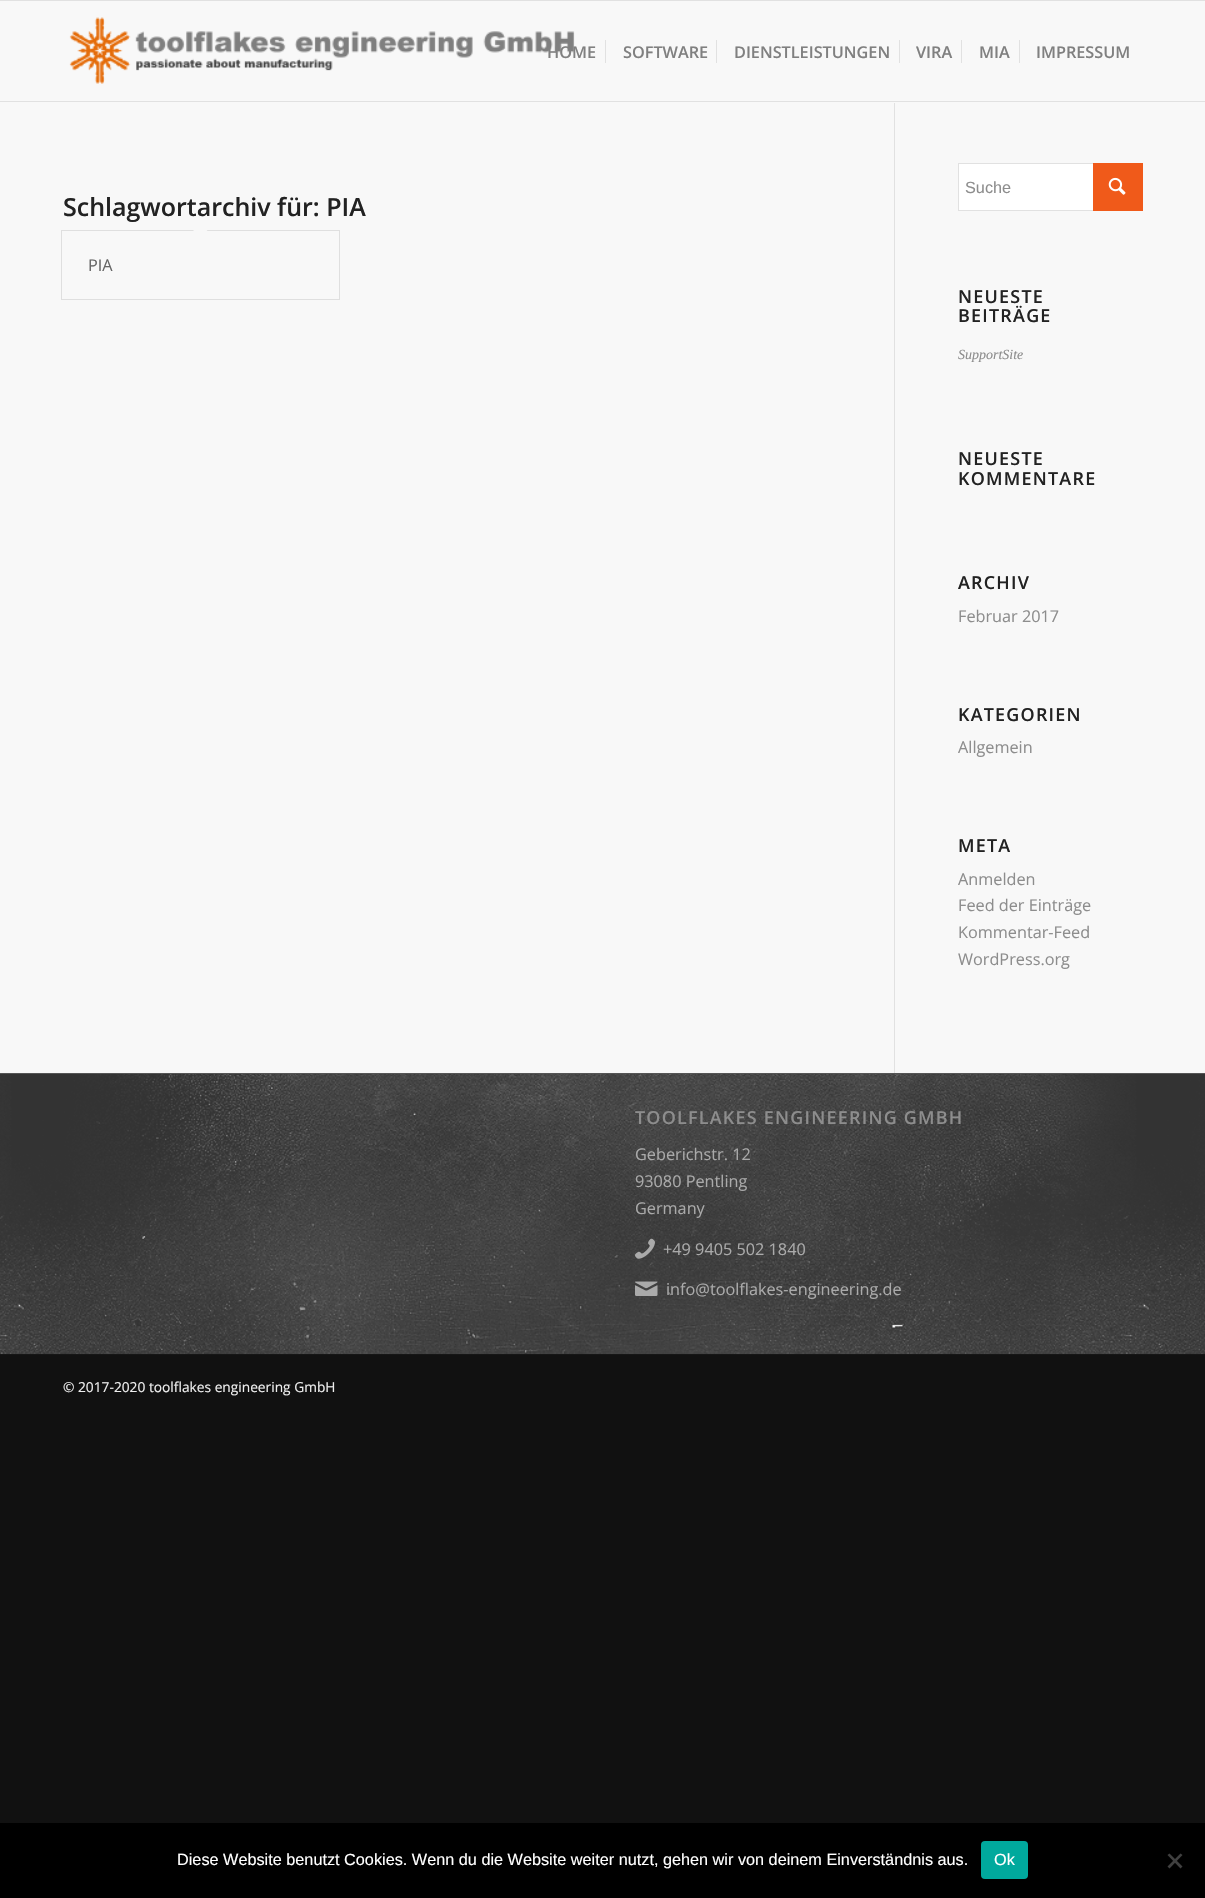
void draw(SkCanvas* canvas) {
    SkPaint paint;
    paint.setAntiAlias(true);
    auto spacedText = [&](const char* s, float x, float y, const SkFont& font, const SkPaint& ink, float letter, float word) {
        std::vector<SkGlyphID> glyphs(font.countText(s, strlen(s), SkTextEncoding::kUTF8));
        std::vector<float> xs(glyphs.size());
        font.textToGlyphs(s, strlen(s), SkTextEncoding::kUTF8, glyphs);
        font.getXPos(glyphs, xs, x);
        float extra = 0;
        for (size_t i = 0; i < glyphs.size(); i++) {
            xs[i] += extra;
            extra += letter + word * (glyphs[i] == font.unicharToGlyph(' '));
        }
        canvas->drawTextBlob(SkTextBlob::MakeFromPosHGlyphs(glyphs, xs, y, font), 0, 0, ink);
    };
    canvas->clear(0xFF111111);
    paint.setColor(0xFFF8F8F8);
    canvas->drawRect(SkRect::MakeXYWH(0, 103, 1205, 970), paint);
    paint.setColor(0xFFE1E1E1);
    canvas->drawRect(SkRect::MakeXYWH(894, 100, 1, 973), paint);
    paint.setColor(0xFFF8F8F8);
    canvas->drawRect(SkRect::MakeXYWH(0, 1, 1205, 102), paint);
    paint.setColor(0xFFE1E1E1);
    canvas->drawRect(SkRect::MakeXYWH(0, 0, 1205, 1), paint);
    canvas->drawRect(SkRect::MakeXYWH(0, 101, 1205, 1), paint);
    canvas->drawImageRect(SkImages::DeferredFromEncodedData(SkData::MakeFromFileName("img1.png")), SkRect::MakeXYWH(69, 17, 506, 67), SkSamplingOptions());
    SkFont font1(fontMgr->matchFamilyStyle("Open Sans", SkFontStyle(600, SkFontStyle::kNormal_Width, SkFontStyle::kUpright_Slant)), 16.25f);
    font1.setSubpixel(true);
    paint.setColor(0xFF808080);
    canvas->drawString("HOME", 547, 58, font1, paint);
    canvas->drawString("SOFTWARE", 623, 58, font1, paint);
    paint.setColor(0xFFE1E1E1);
    canvas->drawRect(SkRect::MakeXYWH(605, 40, 1, 23), paint);
    paint.setColor(0xFF808080);
    canvas->drawString("DIENSTLEISTUNGEN", 734, 58, font1, paint);
    paint.setColor(0xFFE1E1E1);
    canvas->drawRect(SkRect::MakeXYWH(716, 40, 1, 23), paint);
    paint.setColor(0xFF808080);
    canvas->drawString("VIRA", 916, 58, font1, paint);
    paint.setColor(0xFFE1E1E1);
    canvas->drawRect(SkRect::MakeXYWH(899, 40, 1, 23), paint);
    paint.setColor(0xFF808080);
    canvas->drawString("MIA", 979, 58, font1, paint);
    paint.setColor(0xFFE1E1E1);
    canvas->drawRect(SkRect::MakeXYWH(961, 40, 1, 23), paint);
    paint.setColor(0xFF808080);
    canvas->drawString("IMPRESSUM", 1036, 58, font1, paint);
    paint.setColor(0xFFE1E1E1);
    canvas->drawRect(SkRect::MakeXYWH(1019, 40, 1, 23), paint);
    SkFont font2(fontMgr->matchFamilyStyle("Open Sans", SkFontStyle(600, SkFontStyle::kNormal_Width, SkFontStyle::kUpright_Slant)), 25);
    font2.setSubpixel(true);
    paint.setColor(0xFF222222);
    canvas->drawString("Schlagwortarchiv für: PIA", 63, 216, font2, paint);
    paint.setStyle(SkPaint::kStroke_Style);
    paint.setStrokeWidth(1);
    paint.setColor(0xFFDFDFDF);
    canvas->drawRect(SkRect::MakeXYWH(61.5f, 230.5f, 278, 69), paint);
    paint.setStyle(SkPaint::kFill_Style);
    paint.setColor(0xFFF8F8F8);
    canvas->drawPath(SkPathBuilder().moveTo(200.5f, 223.5f).lineTo(209, 232.5f).lineTo(200.5f, 241.5f).lineTo(191.5f, 232.5f).close().detach(), paint);
    SkFont font3(fontMgr->matchFamilyStyle("Open Sans", SkFontStyle::Normal()), 16.25f);
    font3.setSubpixel(true);
    paint.setColor(0xFF666666);
    canvas->drawString("PIA", 88, 271, font3, paint);
    paint.setColor(0xFFFFFFFF);
    canvas->drawRect(SkRect::MakeXYWH(959, 164, 134, 46), paint);
    paint.setStyle(SkPaint::kStroke_Style);
    paint.setColor(0xFFE1E1E1);
    canvas->drawRect(SkRect::MakeXYWH(958.5f, 163.5f, 184, 47), paint);
    SkFont font4(fontMgr->matchFamilyStyle("Liberation Sans", SkFontStyle::Normal()), 16.25f);
    font4.setSubpixel(true);
    paint.setStyle(SkPaint::kFill_Style);
    paint.setColor(0xFF8D8D8D);
    canvas->drawString("Suche", 965, 193, font4, paint);
    paint.setColor(0xFFF05A1A);
    canvas->drawRect(SkRect::MakeXYWH(1093, 163, 50, 48), paint);
    canvas->drawImageRect(SkImages::DeferredFromEncodedData(SkData::MakeFromFileName("img2.png")), SkRect::MakeXYWH(1108, 177, 18, 18), SkSamplingOptions());
    SkFont font5(fontMgr->matchFamilyStyle("Open Sans", SkFontStyle(600, SkFontStyle::kNormal_Width, SkFontStyle::kUpright_Slant)), 17.9f);
    font5.setSubpixel(true);
    paint.setColor(0xFF222222);
    spacedText("NEUESTE", 958, 303, font5, paint, 1.25f, 0);
    spacedText("BEITRÄGE", 958, 322, font5, paint, 1.25f, 0);
    SkFont font6(fontMgr->matchFamilyStyle("Liberation Serif", SkFontStyle::Italic()), 14);
    font6.setSubpixel(true);
    paint.setColor(0xFF8D8D8D);
    canvas->drawString("SupportSite", 958, 359, font6, paint);
    paint.setColor(0xFF222222);
    spacedText("NEUESTE", 958, 465, font5, paint, 1.25f, 0);
    spacedText("KOMMENTARE", 958, 485, font5, paint, 1.25f, 0);
    spacedText("ARCHIV", 958, 589, font5, paint, 1.25f, 0);
    paint.setColor(0xFF8D8D8D);
    canvas->drawString("Februar 2017", 958, 622, font3, paint);
    paint.setColor(0xFF222222);
    spacedText("KATEGORIEN", 958, 721, font5, paint, 1.25f, 0);
    paint.setColor(0xFF8D8D8D);
    canvas->drawString("Allgemein", 958, 753, font3, paint);
    paint.setColor(0xFF222222);
    spacedText("META", 958, 852, font5, paint, 1.25f, 0);
    paint.setColor(0xFF8D8D8D);
    canvas->drawString("Anmelden", 958, 885, font3, paint);
    canvas->drawString("Feed der Einträge", 958, 911, font3, paint);
    canvas->drawString("Kommentar-Feed", 958, 938, font3, paint);
    canvas->drawString("WordPress.org", 958, 965, font3, paint);
    paint.setColor(0xFF333333);
    canvas->drawRect(SkRect::MakeXYWH(0, 1074, 1205, 280), paint);
    canvas->drawImageRect(SkImages::DeferredFromEncodedData(SkData::MakeFromFileName("img3.png")), SkRect::MakeXYWH(0, 1074, 1205, 280), SkSamplingOptions());
    paint.setColor(0xFF555555);
    canvas->drawRect(SkRect::MakeXYWH(0, 1073, 1205, 1), paint);
    paint.setColor(0xFF8D8D8D);
    spacedText("TOOLFLAKES ENGINEERING GMBH", 635, 1124, font5, paint, 1.25f, 0);
    paint.setColor(0xFFAAAAAA);
    canvas->drawString("Geberichstr. 12", 635, 1160, font3, paint);
    canvas->drawString("93080 Pentling", 635, 1187, font3, paint);
    canvas->drawString("Germany", 635, 1214, font3, paint);
    canvas->drawImageRect(SkImages::DeferredFromEncodedData(SkData::MakeFromFileName("img4.png")), SkRect::MakeXYWH(635, 1238, 20, 21), SkSamplingOptions());
    canvas->drawString("+49 9405 502 1840", 663, 1255, font3, paint);
    canvas->drawImageRect(SkImages::DeferredFromEncodedData(SkData::MakeFromFileName("img5.png")), SkRect::MakeXYWH(635, 1281, 23, 15), SkSamplingOptions());
    canvas->drawString("info@toolflakes-engineering.de", 666, 1295, font3, paint);
    paint.setColor(0xFF161616);
    canvas->drawRect(SkRect::MakeXYWH(0, 1354, 1205, 1), paint);
    SkFont font7(fontMgr->matchFamilyStyle("Open Sans", SkFontStyle::Normal()), 13.75f);
    font7.setSubpixel(true);
    paint.setColor(0xFFEEEEEE);
    canvas->drawString("© 2017-2020 toolflakes engineering GmbH", 63, 1392, font7, paint);
    paint.setColor(0xFF000000);
    canvas->drawRect(SkRect::MakeXYWH(0, 1823, 1205, 75), paint);
    paint.setColor(0xFFFFFFFF);
    canvas->drawString("Diese Website benutzt Cookies. Wenn du die Website weiter nutzt, gehen wir von deinem Einverständnis aus.", 177, 1865, font4, paint);
    paint.setColor(0xFF00A99D);
    canvas->drawRoundRect(SkRect::MakeXYWH(981, 1841, 47, 38), 4, 4, paint);
    paint.setColor(0xFFFFFFFF);
    canvas->drawString("Ok", 994, 1865, font4, paint);
    paint.setColor(0xFF404040);
    canvas->drawPath(SkPathBuilder().moveTo(1180.5f, 1853.5f).lineTo(1182.5f, 1855).lineTo(1169.5f, 1868.5f).lineTo(1167.5f, 1866.5f).close().detach(), paint);
    canvas->drawPath(SkPathBuilder().moveTo(1167.5f, 1855).lineTo(1169.5f, 1853.5f).lineTo(1182.5f, 1866.5f).lineTo(1180.5f, 1868.5f).close().detach(), paint);
}
